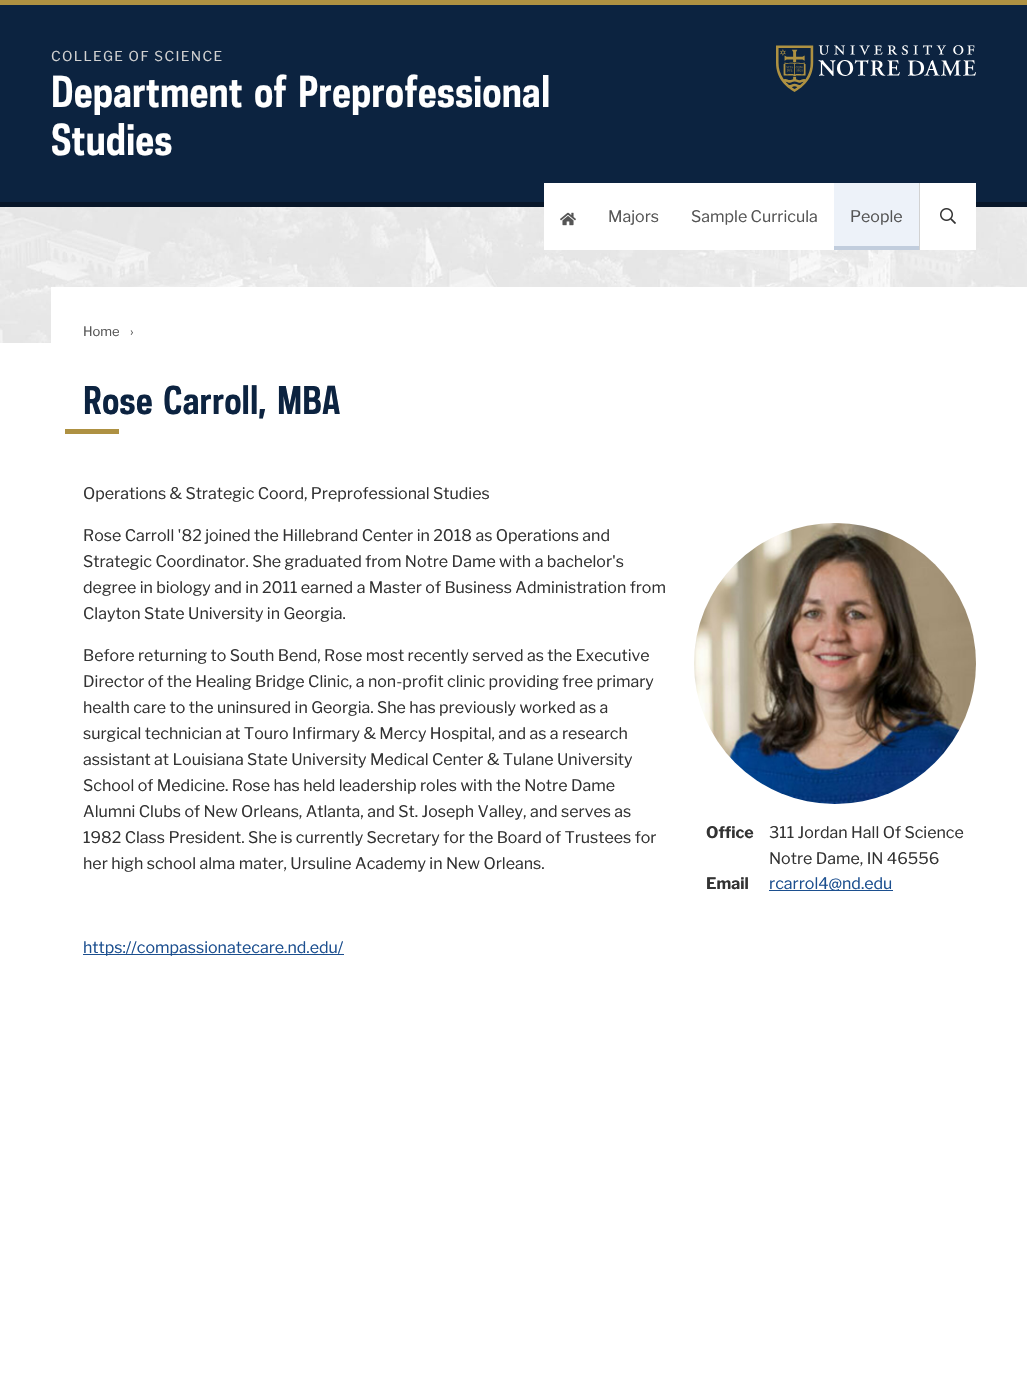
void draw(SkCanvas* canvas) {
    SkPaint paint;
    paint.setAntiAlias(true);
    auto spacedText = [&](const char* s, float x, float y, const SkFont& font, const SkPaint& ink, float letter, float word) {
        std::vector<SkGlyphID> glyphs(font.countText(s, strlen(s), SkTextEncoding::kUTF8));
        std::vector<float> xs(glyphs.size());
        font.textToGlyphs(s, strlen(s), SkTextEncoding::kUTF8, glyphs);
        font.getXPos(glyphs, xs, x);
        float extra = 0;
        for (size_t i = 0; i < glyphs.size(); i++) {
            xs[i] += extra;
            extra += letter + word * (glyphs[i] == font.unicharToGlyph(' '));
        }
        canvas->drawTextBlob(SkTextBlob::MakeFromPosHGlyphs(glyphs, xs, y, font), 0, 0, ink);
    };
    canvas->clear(0xFFFFFFFF);
    paint.setColor(0xFF0C2340);
    canvas->drawRect(SkRect::MakeXYWH(0, 5, 1027, 197), paint);
    paint.setColor(0xFFAE9142);
    canvas->drawRect(SkRect::MakeXYWH(0, 0, 1027, 5), paint);
    paint.setColor(0xFF081629);
    canvas->drawRect(SkRect::MakeXYWH(0, 202, 1027, 5), paint);
    SkFont font1(fontMgr->matchFamilyStyle("Libre Franklin", SkFontStyle::Normal()), 13.6f);
    font1.setSubpixel(true);
    paint.setColor(0xFFD2D2D2);
    spacedText("COLLEGE OF SCIENCE", 51, 61, font1, paint, 1.4f, 0);
    SkFont font2(fontMgr->matchFamilyStyle("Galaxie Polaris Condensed", SkFontStyle::Bold()), 40);
    font2.setSubpixel(true);
    paint.setColor(0xFFFFFFFF);
    canvas->drawString("Department", 51, 107, font2, paint);
    canvas->drawString("of", 254, 107, font2, paint);
    canvas->drawString("Preprofessional", 298, 107, font2, paint);
    canvas->drawString("Studies", 51, 155, font2, paint);
    canvas->drawImageRect(SkImages::DeferredFromEncodedData(SkData::MakeFromFileName("img1.png")), SkRect::MakeXYWH(776, 45, 200, 47), SkSamplingOptions());
    canvas->drawImageRect(SkImages::DeferredFromEncodedData(SkData::MakeFromFileName("img4.png")), SkRect::MakeXYWH(0, 207, 1027, 136), SkSamplingOptions());
    canvas->drawRect(SkRect::MakeXYWH(544, 183, 432, 67), paint);
    canvas->drawImageRect(SkImages::DeferredFromEncodedData(SkData::MakeFromFileName("img2.png")), SkRect::MakeXYWH(560, 212, 16, 14), SkSamplingOptions());
    SkFont font3(fontMgr->matchFamilyStyle("Libre Franklin", SkFontStyle::Normal()), 16);
    font3.setSubpixel(true);
    paint.setColor(0xFF555555);
    canvas->drawString("Majors", 608, 222, font3, paint);
    canvas->drawString("Sample Curricula", 691, 222, font3, paint);
    paint.setColor(0xFFEDF2F9);
    canvas->drawRect(SkRect::MakeXYWH(834, 183, 85, 63), paint);
    paint.setColor(0xFFC1CDDD);
    canvas->drawRect(SkRect::MakeXYWH(834, 246, 85, 4), paint);
    paint.setColor(0xFF555555);
    canvas->drawString("People", 850, 222, font3, paint);
    paint.setColor(0xFFD2D2D2);
    canvas->drawRect(SkRect::MakeXYWH(919, 183, 1, 67), paint);
    canvas->drawImageRect(SkImages::DeferredFromEncodedData(SkData::MakeFromFileName("img3.png")), SkRect::MakeXYWH(940, 208, 16, 16), SkSamplingOptions());
    paint.setColor(0xFFFFFFFF);
    canvas->drawRect(SkRect::MakeXYWH(51, 287, 976, 56), paint);
    SkFont font4(fontMgr->matchFamilyStyle("Libre Franklin", SkFontStyle::Normal()), 13);
    font4.setSubpixel(true);
    paint.setColor(0xFF555555);
    canvas->drawString("Home", 83, 336, font4, paint);
    canvas->drawString("›", 130, 336, font4, paint);
    SkFont font5(fontMgr->matchFamilyStyle("Galaxie Polaris Condensed", SkFontStyle::Bold()), 36);
    font5.setSubpixel(true);
    paint.setColor(0xFF0C2340);
    canvas->drawString("Rose", 83, 414, font5, paint);
    canvas->drawString("Carroll,", 163, 414, font5, paint);
    canvas->drawString("MBA", 277, 414, font5, paint);
    paint.setColor(0xFFAE9142);
    canvas->drawRect(SkRect::MakeXYWH(65, 429, 54, 5), paint);
    paint.setColor(0xFF333333);
    canvas->drawString("Operations & Strategic Coord, Preprofessional Studies", 83, 499, font3, paint);
    canvas->drawString("Rose Carroll '82 joined the Hillebrand Center in 2018 as Operations and", 83, 541, font3, paint);
    canvas->drawString("Strategic Coordinator. She graduated from Notre Dame with a bachelor's", 83, 567, font3, paint);
    canvas->drawString("degree in biology and in 2011 earned a Master of Business Administration from", 83, 593, font3, paint);
    canvas->drawString("Clayton State University in Georgia.", 83, 619, font3, paint);
    canvas->drawString("Before returning to South Bend, Rose most recently served as the Executive", 83, 661, font3, paint);
    canvas->drawString("Director of the Healing Bridge Clinic, a non-profit clinic providing free primary", 83, 687, font3, paint);
    canvas->drawString("health care to the uninsured in Georgia. She has previously worked as a", 83, 713, font3, paint);
    canvas->drawString("surgical technician at Touro Infirmary & Mercy Hospital, and as a research", 83, 739, font3, paint);
    canvas->drawString("assistant at Louisiana State University Medical Center & Tulane University", 83, 765, font3, paint);
    canvas->drawString("School of Medicine. Rose has held leadership roles with the Notre Dame", 83, 791, font3, paint);
    canvas->drawString("Alumni Clubs of New Orleans, Atlanta, and St. Joseph Valley, and serves as", 83, 817, font3, paint);
    canvas->drawString("1982 Class President. She is currently Secretary for the Board of Trustees for", 83, 843, font3, paint);
    canvas->drawString("her high school alma mater, Ursuline Academy in New Orleans.", 83, 869, font3, paint);
    paint.setColor(0xFF1C4F8F);
    canvas->drawRect(SkRect::MakeXYWH(83, 954, 261, 1), paint);
    canvas->drawString("https://compassionatecare.nd.edu/", 83, 953, font3, paint);
    canvas->drawImageRect(SkImages::DeferredFromEncodedData(SkData::MakeFromFileName("img5.png")), SkRect::MakeXYWH(694, 523, 282, 281), SkSamplingOptions());
    SkFont font6(fontMgr->matchFamilyStyle("Libre Franklin", SkFontStyle::Bold()), 16);
    font6.setSubpixel(true);
    paint.setColor(0xFF333333);
    canvas->drawString("Office", 706, 838, font6, paint);
    canvas->drawString("311 Jordan Hall Of Science", 769, 838, font3, paint);
    canvas->drawString("Notre Dame, IN 46556", 769, 864, font3, paint);
    canvas->drawString("Email", 706, 889, font6, paint);
    paint.setColor(0xFF1C4F8F);
    canvas->drawRect(SkRect::MakeXYWH(769, 890, 124, 1), paint);
    canvas->drawString("rcarrol4@nd.edu", 769, 889, font3, paint);
}
